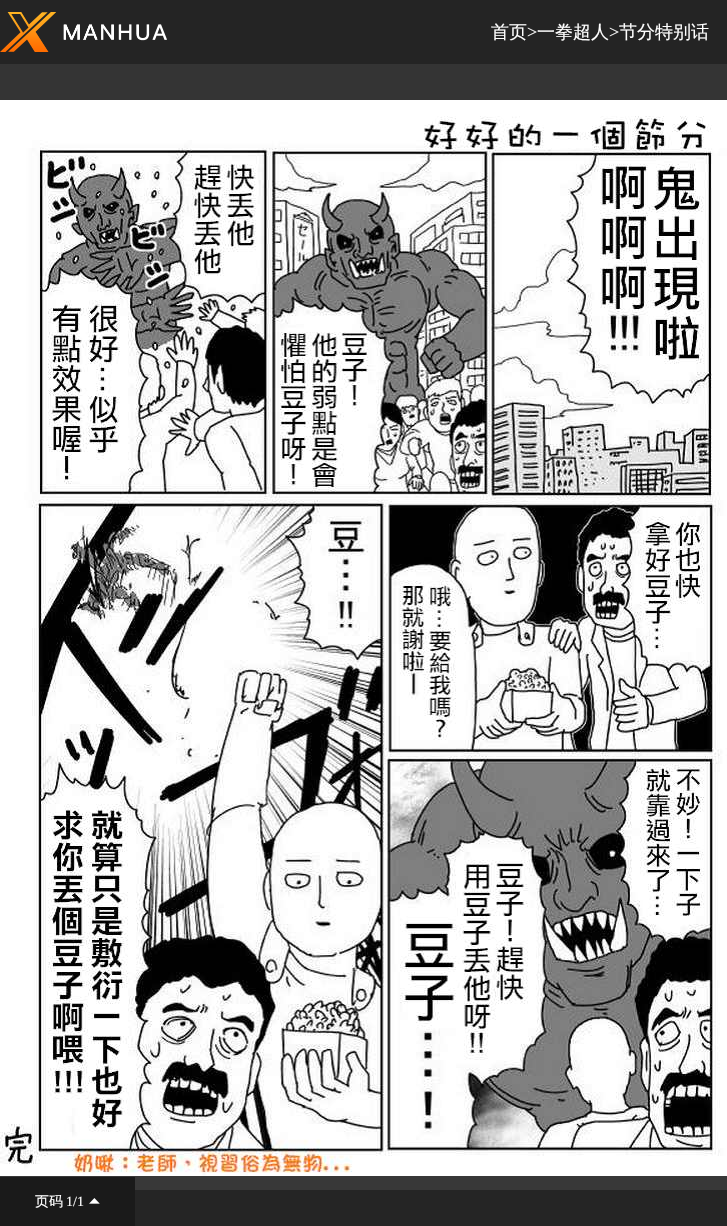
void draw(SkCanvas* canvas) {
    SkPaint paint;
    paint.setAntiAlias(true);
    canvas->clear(0xFF343434);
    paint.setColor(0xFF242424);
    canvas->drawRect(SkRect::MakeXYWH(0, 0, 727, 64), paint);
    canvas->drawImageRect(SkImages::DeferredFromEncodedData(SkData::MakeFromFileName("img1.png")), SkRect::MakeXYWH(0, 12, 167, 40), SkSamplingOptions());
    SkFont font1(fontMgr->matchFamilyStyle("WenQuanYi Zen Hei", SkFontStyle(500, SkFontStyle::kNormal_Width, SkFontStyle::kUpright_Slant)), 18);
    font1.setSubpixel(true);
    paint.setColor(0xFFFFFFFF);
    canvas->drawString("首页", 491, 38, font1, paint);
    SkFont font2(fontMgr->matchFamilyStyle("Liberation Serif", SkFontStyle::Normal()), 18);
    font2.setSubpixel(true);
    canvas->drawString(">", 527, 38, font2, paint);
    canvas->drawString("一拳超人", 537, 38, font1, paint);
    canvas->drawString(">", 609, 38, font2, paint);
    canvas->drawString("节分特别话", 619, 38, font1, paint);
    canvas->drawImageRect(SkImages::DeferredFromEncodedData(SkData::MakeFromFileName("img2.png")), SkRect::MakeXYWH(0, 100, 727, 1090), SkSamplingOptions());
    paint.setColor(0xE6222222);
    canvas->drawRect(SkRect::MakeXYWH(0, 1176, 727, 50), paint);
    paint.setColor(0xFF1A1A1A);
    canvas->drawRect(SkRect::MakeXYWH(0, 1177, 135, 49), paint);
    SkFont font3(fontMgr->matchFamilyStyle("WenQuanYi Zen Hei", SkFontStyle(500, SkFontStyle::kNormal_Width, SkFontStyle::kUpright_Slant)), 14);
    font3.setSubpixel(true);
    paint.setColor(0xFFFFFFFF);
    canvas->drawString("页码", 35, 1206, font3, paint);
    SkFont font4(fontMgr->matchFamilyStyle("Liberation Serif", SkFontStyle::Normal()), 14);
    font4.setSubpixel(true);
    canvas->drawString("1/1", 66, 1206, font4, paint);
    canvas->drawImageRect(SkImages::DeferredFromEncodedData(SkData::MakeFromFileName("img3.png")), SkRect::MakeXYWH(89, 1198, 11, 6), SkSamplingOptions());
}
